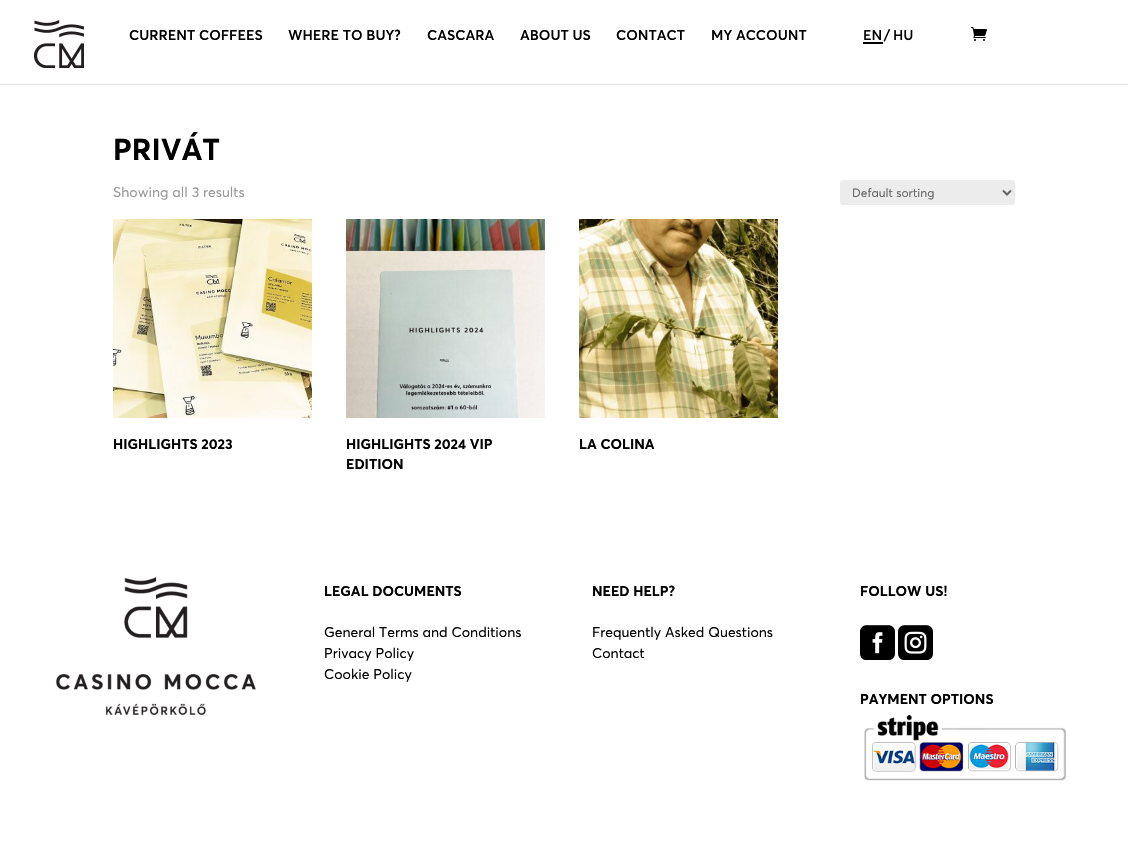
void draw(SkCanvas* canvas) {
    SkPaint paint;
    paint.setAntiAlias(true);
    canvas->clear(0xFFFFFFFF);
    paint.setColor(0xFFE6E6E6);
    canvas->drawRect(SkRect::MakeXYWH(0, 84, 1128, 1), paint);
    canvas->drawImageRect(SkImages::DeferredFromEncodedData(SkData::MakeFromFileName("img1.png")), SkRect::MakeXYWH(34, 20, 50, 48), SkSamplingOptions());
    SkFont font1(fontMgr->matchFamilyStyle("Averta", SkFontStyle(600, SkFontStyle::kNormal_Width, SkFontStyle::kUpright_Slant)), 14);
    font1.setSubpixel(true);
    paint.setColor(0xFF000000);
    canvas->drawString("CURRENT COFFEES", 129, 40, font1, paint);
    canvas->drawString("WHERE TO BUY?", 288, 40, font1, paint);
    canvas->drawString("CASCARA", 427, 40, font1, paint);
    canvas->drawString("ABOUT US", 520, 40, font1, paint);
    canvas->drawString("CONTACT", 616, 40, font1, paint);
    canvas->drawString("MY ACCOUNT", 711, 40, font1, paint);
    canvas->drawImageRect(SkImages::DeferredFromEncodedData(SkData::MakeFromFileName("img2.png")), SkRect::MakeXYWH(864, 30, 17, 10), SkSamplingOptions());
    canvas->drawRect(SkRect::MakeXYWH(863, 42, 20, 2), paint);
    canvas->drawString("/", 884, 40, font1, paint);
    canvas->drawImageRect(SkImages::DeferredFromEncodedData(SkData::MakeFromFileName("img3.png")), SkRect::MakeXYWH(894, 30, 19, 11), SkSamplingOptions());
    canvas->drawImageRect(SkImages::DeferredFromEncodedData(SkData::MakeFromFileName("img4.png")), SkRect::MakeXYWH(971, 27, 16, 14), SkSamplingOptions());
    SkFont font2(fontMgr->matchFamilyStyle("Averta", SkFontStyle::Bold()), 30);
    font2.setSubpixel(true);
    canvas->drawString("PRIVÁT", 113, 160, font2, paint);
    SkFont font3(fontMgr->matchFamilyStyle("Averta", SkFontStyle::Normal()), 14);
    font3.setSubpixel(true);
    paint.setColor(0xFF999999);
    canvas->drawString("Showing all 3 results", 113, 197, font3, paint);
    paint.setColor(0xFFECECEC);
    canvas->drawRoundRect(SkRect::MakeXYWH(840, 180, 175, 25), 3, 3, paint);
    paint.setStyle(SkPaint::kStroke_Style);
    paint.setStrokeWidth(2);
    paint.setColor(0xFF666666);
    canvas->drawPath(SkPathBuilder().moveTo(1003, 190.5f).lineTo(1007, 194.5f).lineTo(1011, 190.5f).detach(), paint);
    SkFont font4(fontMgr->matchFamilyStyle("Averta", SkFontStyle::Normal()), 12);
    font4.setSubpixel(true);
    paint.setStyle(SkPaint::kFill_Style);
    canvas->drawString("Default sorting", 852, 197, font4, paint);
    canvas->drawImageRect(SkImages::DeferredFromEncodedData(SkData::MakeFromFileName("img5.png")), SkRect::MakeXYWH(113, 219, 199, 199), SkSamplingOptions());
    SkFont font5(fontMgr->matchFamilyStyle("Averta", SkFontStyle::Bold()), 14);
    font5.setSubpixel(true);
    paint.setColor(0xFF000000);
    canvas->drawString("HIGHLIGHTS 2023", 113, 449, font5, paint);
    canvas->drawImageRect(SkImages::DeferredFromEncodedData(SkData::MakeFromFileName("img6.png")), SkRect::MakeXYWH(346, 219, 199, 199), SkSamplingOptions());
    canvas->drawString("HIGHLIGHTS 2024 VIP", 346, 449, font5, paint);
    canvas->drawString("EDITION", 346, 469, font5, paint);
    canvas->drawImageRect(SkImages::DeferredFromEncodedData(SkData::MakeFromFileName("img7.png")), SkRect::MakeXYWH(579, 219, 199, 199), SkSamplingOptions());
    canvas->drawString("LA COLINA", 579, 449, font5, paint);
    canvas->drawImageRect(SkImages::DeferredFromEncodedData(SkData::MakeFromFileName("img8.png")), SkRect::MakeXYWH(56, 577, 200, 139), SkSamplingOptions());
    canvas->drawString("LEGAL DOCUMENTS", 324, 596, font5, paint);
    canvas->drawString("General Terms and Conditions", 324, 637, font3, paint);
    canvas->drawString("Privacy Policy", 324, 658, font3, paint);
    canvas->drawString("Cookie Policy", 324, 679, font3, paint);
    canvas->drawString("NEED HELP?", 592, 596, font5, paint);
    canvas->drawString("Frequently Asked Questions", 592, 637, font3, paint);
    canvas->drawString("Contact", 592, 658, font3, paint);
    canvas->drawString("FOLLOW US!", 860, 596, font5, paint);
    canvas->drawImageRect(SkImages::DeferredFromEncodedData(SkData::MakeFromFileName("img9.png")), SkRect::MakeXYWH(860, 625, 35, 35), SkSamplingOptions());
    canvas->drawImageRect(SkImages::DeferredFromEncodedData(SkData::MakeFromFileName("img10.png")), SkRect::MakeXYWH(898, 625, 35, 35), SkSamplingOptions());
    canvas->drawString("PAYMENT OPTIONS", 860, 704, font5, paint);
    canvas->drawImageRect(SkImages::DeferredFromEncodedData(SkData::MakeFromFileName("img11.png")), SkRect::MakeXYWH(864, 715, 202, 66), SkSamplingOptions());
}
